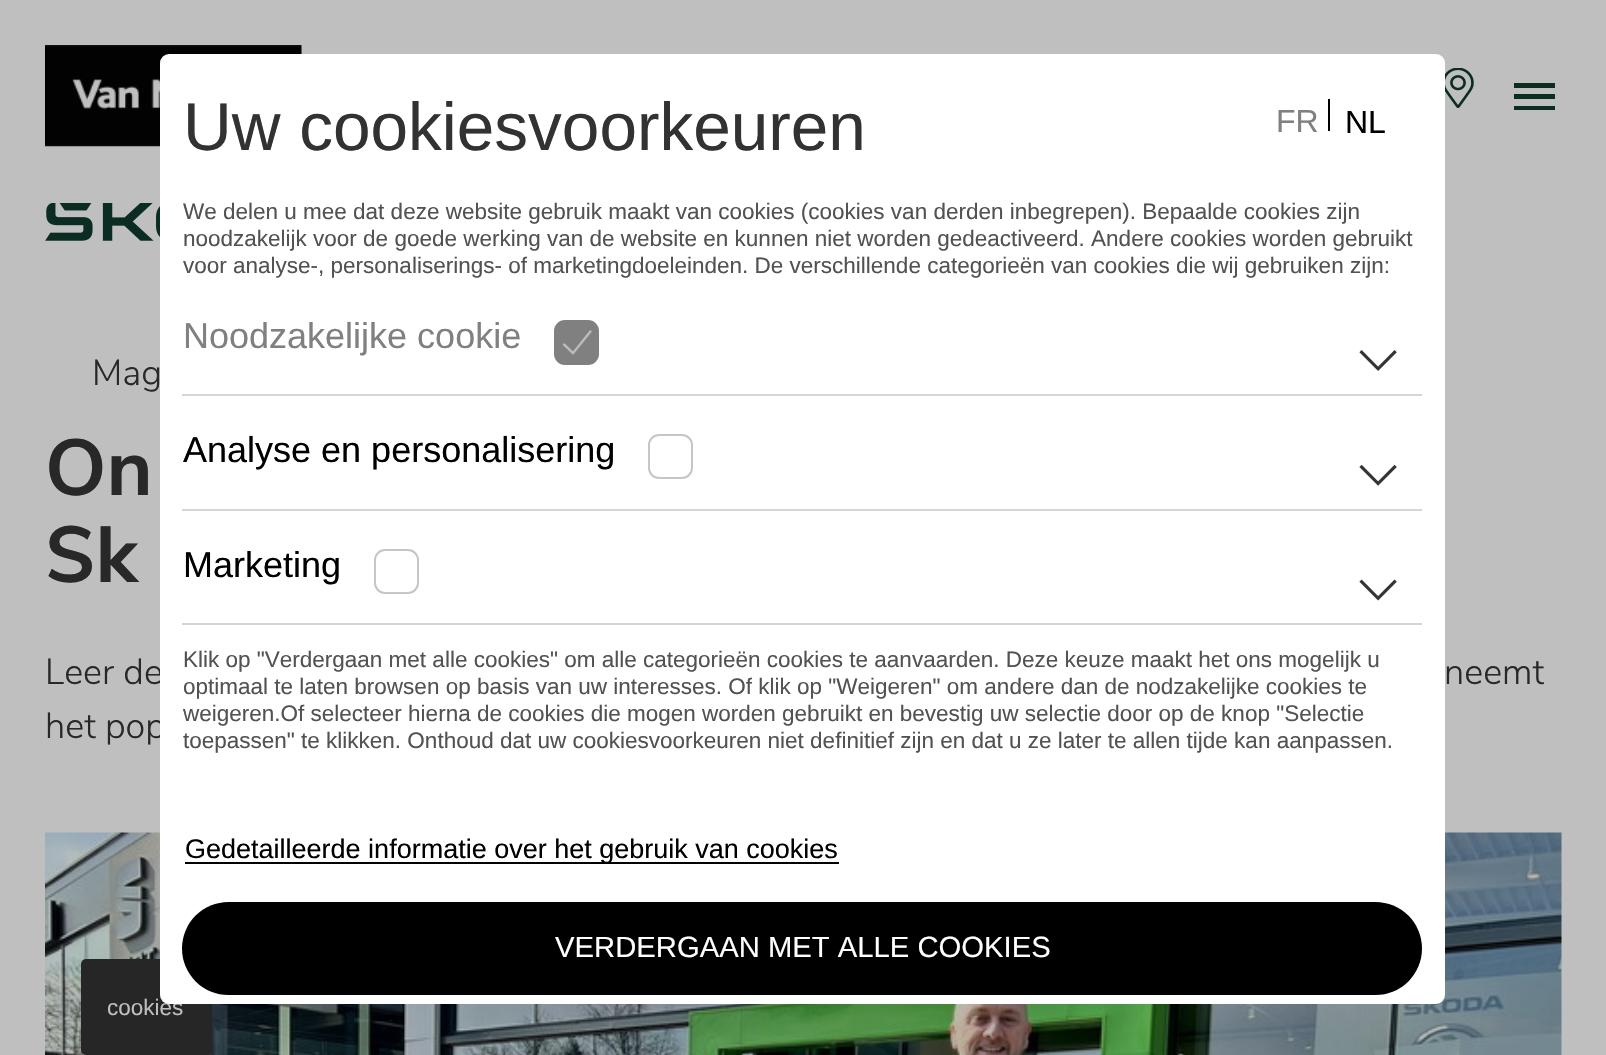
void draw(SkCanvas* canvas) {
    SkPaint paint;
    paint.setAntiAlias(true);
    canvas->clear(0xFFBFBFBF);
    canvas->drawImageRect(SkImages::DeferredFromEncodedData(SkData::MakeFromFileName("img5.png")), SkRect::MakeXYWH(45, 45, 257, 102), SkSamplingOptions());
    SkFont font1(fontMgr->matchFamilyStyle("Nunito Sans", SkFontStyle(300, SkFontStyle::kNormal_Width, SkFontStyle::kUpright_Slant)), 36);
    font1.setSubpixel(true);
    paint.setColor(0xFF282828);
    canvas->drawString("Leer de", 45, 684, font1, paint);
    canvas->drawString("het pop", 45, 738, font1, paint);
    canvas->drawImageRect(SkImages::DeferredFromEncodedData(SkData::MakeFromFileName("img8.png")), SkRect::MakeXYWH(45, 832, 1517, 223), SkSamplingOptions());
    paint.setColor(0xFF262626);
    canvas->drawRoundRect(SkRect::MakeXYWH(81, 959, 131, 96), 5, 5, paint);
    SkFont font2(fontMgr->matchFamilyStyle("Liberation Sans", SkFontStyle::Normal()), 22.5f);
    font2.setSubpixel(true);
    paint.setColor(0xFFBFBFBF);
    canvas->drawString("cookies", 107, 1015, font2, paint);
    paint.setColor(0xFFFFFFFF);
    canvas->drawRoundRect(SkRect::MakeXYWH(160, 54, 1285, 950), 9, 9, paint);
    SkFont font3(fontMgr->matchFamilyStyle("Liberation Sans", SkFontStyle::Normal()), 67.5f);
    font3.setSubpixel(true);
    paint.setColor(0xFF323232);
    canvas->drawString("Uw cookiesvoorkeuren", 183, 150, font3, paint);
    SkFont font4(fontMgr->matchFamilyStyle("Liberation Sans", SkFontStyle::Normal()), 32);
    font4.setSubpixel(true);
    paint.setColor(0xFF808080);
    canvas->drawString("FR", 1276, 132, font4, paint);
    paint.setColor(0xFF000000);
    canvas->drawRect(SkRect::MakeXYWH(1328, 99, 2, 32), paint);
    canvas->drawString("NL", 1345, 133, font4, paint);
    paint.setColor(0xFF525252);
    canvas->drawString("We delen u mee dat deze website gebruik maakt van cookies (cookies van derden inbegrepen). Bepaalde cookies zijn", 183, 219, font2, paint);
    canvas->drawString("noodzakelijk voor de goede werking van de website en kunnen niet worden gedeactiveerd. Andere cookies worden gebruikt", 183, 246, font2, paint);
    canvas->drawString("voor analyse-, personaliserings- of marketingdoeleinden. De verschillende categorieën van cookies die wij gebruiken zijn:", 183, 273, font2, paint);
    SkFont font5(fontMgr->matchFamilyStyle("Liberation Sans", SkFontStyle::Normal()), 36);
    font5.setSubpixel(true);
    paint.setColor(0xFF808080);
    canvas->drawString("Noodzakelijke cookie", 183, 348, font5, paint);
    canvas->drawRoundRect(SkRect::MakeXYWH(555, 321, 43, 43), 10, 10, paint);
    paint.setStyle(SkPaint::kStroke_Style);
    paint.setStrokeWidth(2);
    canvas->drawRoundRect(SkRect::MakeXYWH(555, 321, 43, 43), 10, 10, paint);
    canvas->drawImageRect(SkImages::DeferredFromEncodedData(SkData::MakeFromFileName("img1.png")), SkRect::MakeXYWH(562, 330, 31, 25), SkSamplingOptions());
    canvas->drawImageRect(SkImages::DeferredFromEncodedData(SkData::MakeFromFileName("img2.png")), SkRect::MakeXYWH(1359, 350, 38, 21), SkSamplingOptions());
    paint.setStyle(SkPaint::kFill_Style);
    paint.setColor(0xFFD5D5D5);
    canvas->drawRect(SkRect::MakeXYWH(182, 394, 1240, 2), paint);
    paint.setColor(0xFF000000);
    canvas->drawString("Analyse en personalisering", 183, 462, font5, paint);
    paint.setStyle(SkPaint::kStroke_Style);
    paint.setColor(0xFFC4C6C9);
    canvas->drawRoundRect(SkRect::MakeXYWH(649, 435, 43, 43), 10, 10, paint);
    canvas->drawImageRect(SkImages::DeferredFromEncodedData(SkData::MakeFromFileName("img3.png")), SkRect::MakeXYWH(1359, 464, 38, 22), SkSamplingOptions());
    paint.setStyle(SkPaint::kFill_Style);
    paint.setColor(0xFFD5D5D5);
    canvas->drawRect(SkRect::MakeXYWH(182, 509, 1240, 2), paint);
    paint.setColor(0xFF000000);
    canvas->drawString("Marketing", 183, 577, font5, paint);
    paint.setStyle(SkPaint::kStroke_Style);
    paint.setColor(0xFFC4C6C9);
    canvas->drawRoundRect(SkRect::MakeXYWH(375, 550, 43, 43), 10, 10, paint);
    canvas->drawImageRect(SkImages::DeferredFromEncodedData(SkData::MakeFromFileName("img4.png")), SkRect::MakeXYWH(1359, 579, 38, 22), SkSamplingOptions());
    paint.setStyle(SkPaint::kFill_Style);
    paint.setColor(0xFFD5D5D5);
    canvas->drawRect(SkRect::MakeXYWH(182, 623, 1240, 2), paint);
    paint.setColor(0xFF525252);
    canvas->drawString("Klik op \"Verdergaan met alle cookies\" om alle categorieën cookies te aanvaarden. Deze keuze maakt het ons mogelijk u", 183, 667, font2, paint);
    canvas->drawString("optimaal te laten browsen op basis van uw interesses. Of klik op \"Weigeren\" om andere dan de nodzakelijke cookies te", 183, 694, font2, paint);
    canvas->drawString("weigeren.Of selecteer hierna de cookies die mogen worden gebruikt en bevestig uw selectie door op de knop \"Selectie", 183, 721, font2, paint);
    canvas->drawString("toepassen\" te klikken. Onthoud dat uw cookiesvoorkeuren niet definitief zijn en dat u ze later te allen tijde kan aanpassen.", 183, 748, font2, paint);
    paint.setColor(0xFF000000);
    canvas->drawRect(SkRect::MakeXYWH(185, 862, 654, 2), paint);
    SkFont font6(fontMgr->matchFamilyStyle("Liberation Sans", SkFontStyle::Normal()), 27);
    font6.setSubpixel(true);
    canvas->drawString("Gedetailleerde informatie over het gebruik van cookies", 185, 858, font6, paint);
    canvas->drawRoundRect(SkRect::MakeXYWH(182, 902, 1240, 93), 46.5f, 46.5f, paint);
    SkFont font7(fontMgr->matchFamilyStyle("Liberation Sans", SkFontStyle::Normal()), 29.25f);
    font7.setSubpixel(true);
    paint.setColor(0xFFFFFFFF);
    canvas->drawString("VERDERGAAN MET ALLE COOKIES", 555, 957, font7, paint);
    canvas->drawImageRect(SkImages::DeferredFromEncodedData(SkData::MakeFromFileName("img6.png")), SkRect::MakeXYWH(1445, 68, 29, 40), SkSamplingOptions());
    paint.setColor(0xFF0B2C23);
    canvas->drawPath(SkPathBuilder().moveTo(1514, 99).lineTo(1555, 99).lineTo(1555, 94).lineTo(1514, 94).close().moveTo(1514, 110).lineTo(1555, 110).lineTo(1555, 106).lineTo(1514, 106).close().moveTo(1514, 83).lineTo(1514, 88).lineTo(1555, 88).lineTo(1555, 83).close().detach(), paint);
    canvas->drawImageRect(SkImages::DeferredFromEncodedData(SkData::MakeFromFileName("img7.png")), SkRect::MakeXYWH(45, 203, 115, 38), SkSamplingOptions());
    paint.setColor(0xFF282828);
    canvas->drawString("Mag", 92, 385, font1, paint);
    SkFont font8(fontMgr->matchFamilyStyle("Nunito Sans", SkFontStyle::Bold()), 79);
    font8.setSubpixel(true);
    canvas->drawString("On", 45, 495, font8, paint);
    canvas->drawString("Sk", 45, 582, font8, paint);
    canvas->drawString("neemt", 1444, 684, font1, paint);
}
